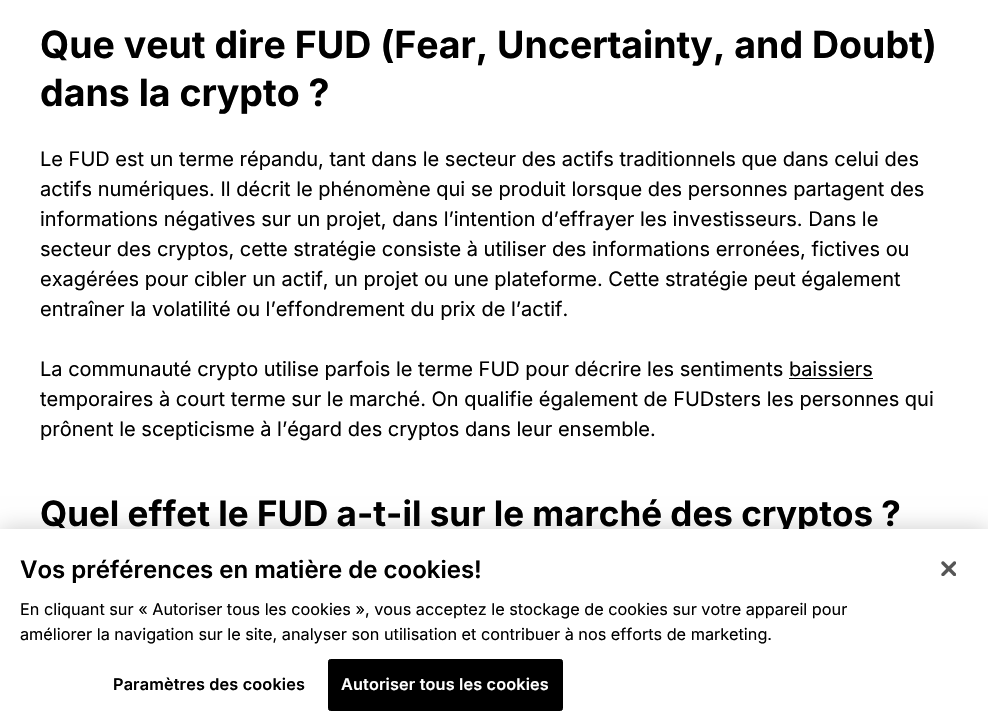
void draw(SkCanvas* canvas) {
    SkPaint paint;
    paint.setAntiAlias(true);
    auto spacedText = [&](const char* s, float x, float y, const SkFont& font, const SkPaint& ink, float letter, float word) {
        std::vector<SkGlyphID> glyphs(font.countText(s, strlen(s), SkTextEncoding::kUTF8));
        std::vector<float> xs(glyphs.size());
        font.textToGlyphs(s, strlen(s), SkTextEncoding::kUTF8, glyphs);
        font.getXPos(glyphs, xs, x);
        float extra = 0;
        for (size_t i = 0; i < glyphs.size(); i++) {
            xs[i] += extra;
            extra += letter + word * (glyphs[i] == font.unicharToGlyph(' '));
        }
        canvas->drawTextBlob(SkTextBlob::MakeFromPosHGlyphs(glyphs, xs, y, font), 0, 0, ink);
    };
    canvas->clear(0xFFFFFFFF);
    SkFont font1(fontMgr->matchFamilyStyle("Inter", SkFontStyle::Bold()), 37.5f);
    font1.setSubpixel(true);
    paint.setColor(0xFF000000);
    canvas->drawString("Que veut dire FUD (Fear, Uncertainty, and Doubt)", 40, 58, font1, paint);
    canvas->drawString("dans la crypto ?", 40, 106, font1, paint);
    SkFont font2(fontMgr->matchFamilyStyle("Inter", SkFontStyle::Normal()), 20);
    font2.setSubpixel(true);
    canvas->drawString("Le FUD est un terme répandu, tant dans le secteur des actifs traditionnels que dans celui des", 40, 166, font2, paint);
    canvas->drawString("actifs numériques. Il décrit le phénomène qui se produit lorsque des personnes partagent des", 40, 196, font2, paint);
    canvas->drawString("informations négatives sur un projet, dans l’intention d’effrayer les investisseurs. Dans le", 40, 226, font2, paint);
    canvas->drawString("secteur des cryptos, cette stratégie consiste à utiliser des informations erronées, fictives ou", 40, 256, font2, paint);
    canvas->drawString("exagérées pour cibler un actif, un projet ou une plateforme. Cette stratégie peut également", 40, 286, font2, paint);
    canvas->drawString("entraîner la volatilité ou l’effondrement du prix de l’actif.", 40, 316, font2, paint);
    canvas->drawString("La communauté crypto utilise parfois le terme FUD pour décrire les sentiments baissiers", 40, 376, font2, paint);
    canvas->drawRect(SkRect::MakeXYWH(789, 378, 84, 1), paint);
    canvas->drawString("temporaires à court terme sur le marché. On qualifie également de FUDsters les personnes qui", 40, 406, font2, paint);
    canvas->drawString("prônent le scepticisme à l’égard des cryptos dans leur ensemble.", 40, 436, font2, paint);
    SkFont font3(fontMgr->matchFamilyStyle("Inter", SkFontStyle::Bold()), 35);
    font3.setSubpixel(true);
    canvas->drawString("Quel effet le FUD a-t-il sur le marché des cryptos ?", 40, 526, font3, paint);
    paint.setColor(0x33000000);
    paint.setMaskFilter(SkMaskFilter::MakeBlur(kNormal_SkBlurStyle, 11));
    canvas->drawRect(SkRect::MakeXYWH(0, 529, 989, 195), paint);
    paint.setMaskFilter(nullptr);
    paint.setColor(0xFFFFFFFF);
    canvas->drawRect(SkRect::MakeXYWH(0, 529, 988, 194), paint);
    SkFont font4(fontMgr->matchFamilyStyle("Inter", SkFontStyle(600, SkFontStyle::kNormal_Width, SkFontStyle::kUpright_Slant)), 24);
    font4.setSubpixel(true);
    paint.setColor(0xFF000000);
    canvas->drawString("Vos préférences en matière de cookies!", 20, 578, font4, paint);
    SkFont font5(fontMgr->matchFamilyStyle("Inter", SkFontStyle::Normal()), 16.25f);
    font5.setSubpixel(true);
    canvas->drawString("En cliquant sur « Autoriser tous les cookies », vous acceptez le stockage de cookies sur votre appareil pour", 20, 615, font5, paint);
    canvas->drawString("améliorer la navigation sur le site, analyser son utilisation et contribuer à nos efforts de marketing.", 20, 640, font5, paint);
    SkFont font6(fontMgr->matchFamilyStyle("Inter", SkFontStyle(600, SkFontStyle::kNormal_Width, SkFontStyle::kUpright_Slant)), 16.25f);
    font6.setSubpixel(true);
    spacedText("Paramètres des cookies", 113, 690, font6, paint, 0.15f, 0);
    canvas->drawRoundRect(SkRect::MakeXYWH(328.5f, 659.5f, 234, 51), 2, 2, paint);
    paint.setStyle(SkPaint::kStroke_Style);
    paint.setStrokeWidth(1);
    canvas->drawRoundRect(SkRect::MakeXYWH(328.5f, 659.5f, 234, 51), 2, 2, paint);
    paint.setStyle(SkPaint::kFill_Style);
    paint.setColor(0xFFFFFFFF);
    spacedText("Autoriser tous les cookies", 341, 690, font6, paint, 0.15f, 0);
    canvas->drawImageRect(SkImages::DeferredFromEncodedData(SkData::MakeFromFileName("img1.png")), SkRect::MakeXYWH(941, 561, 15, 15), SkSamplingOptions());
}
